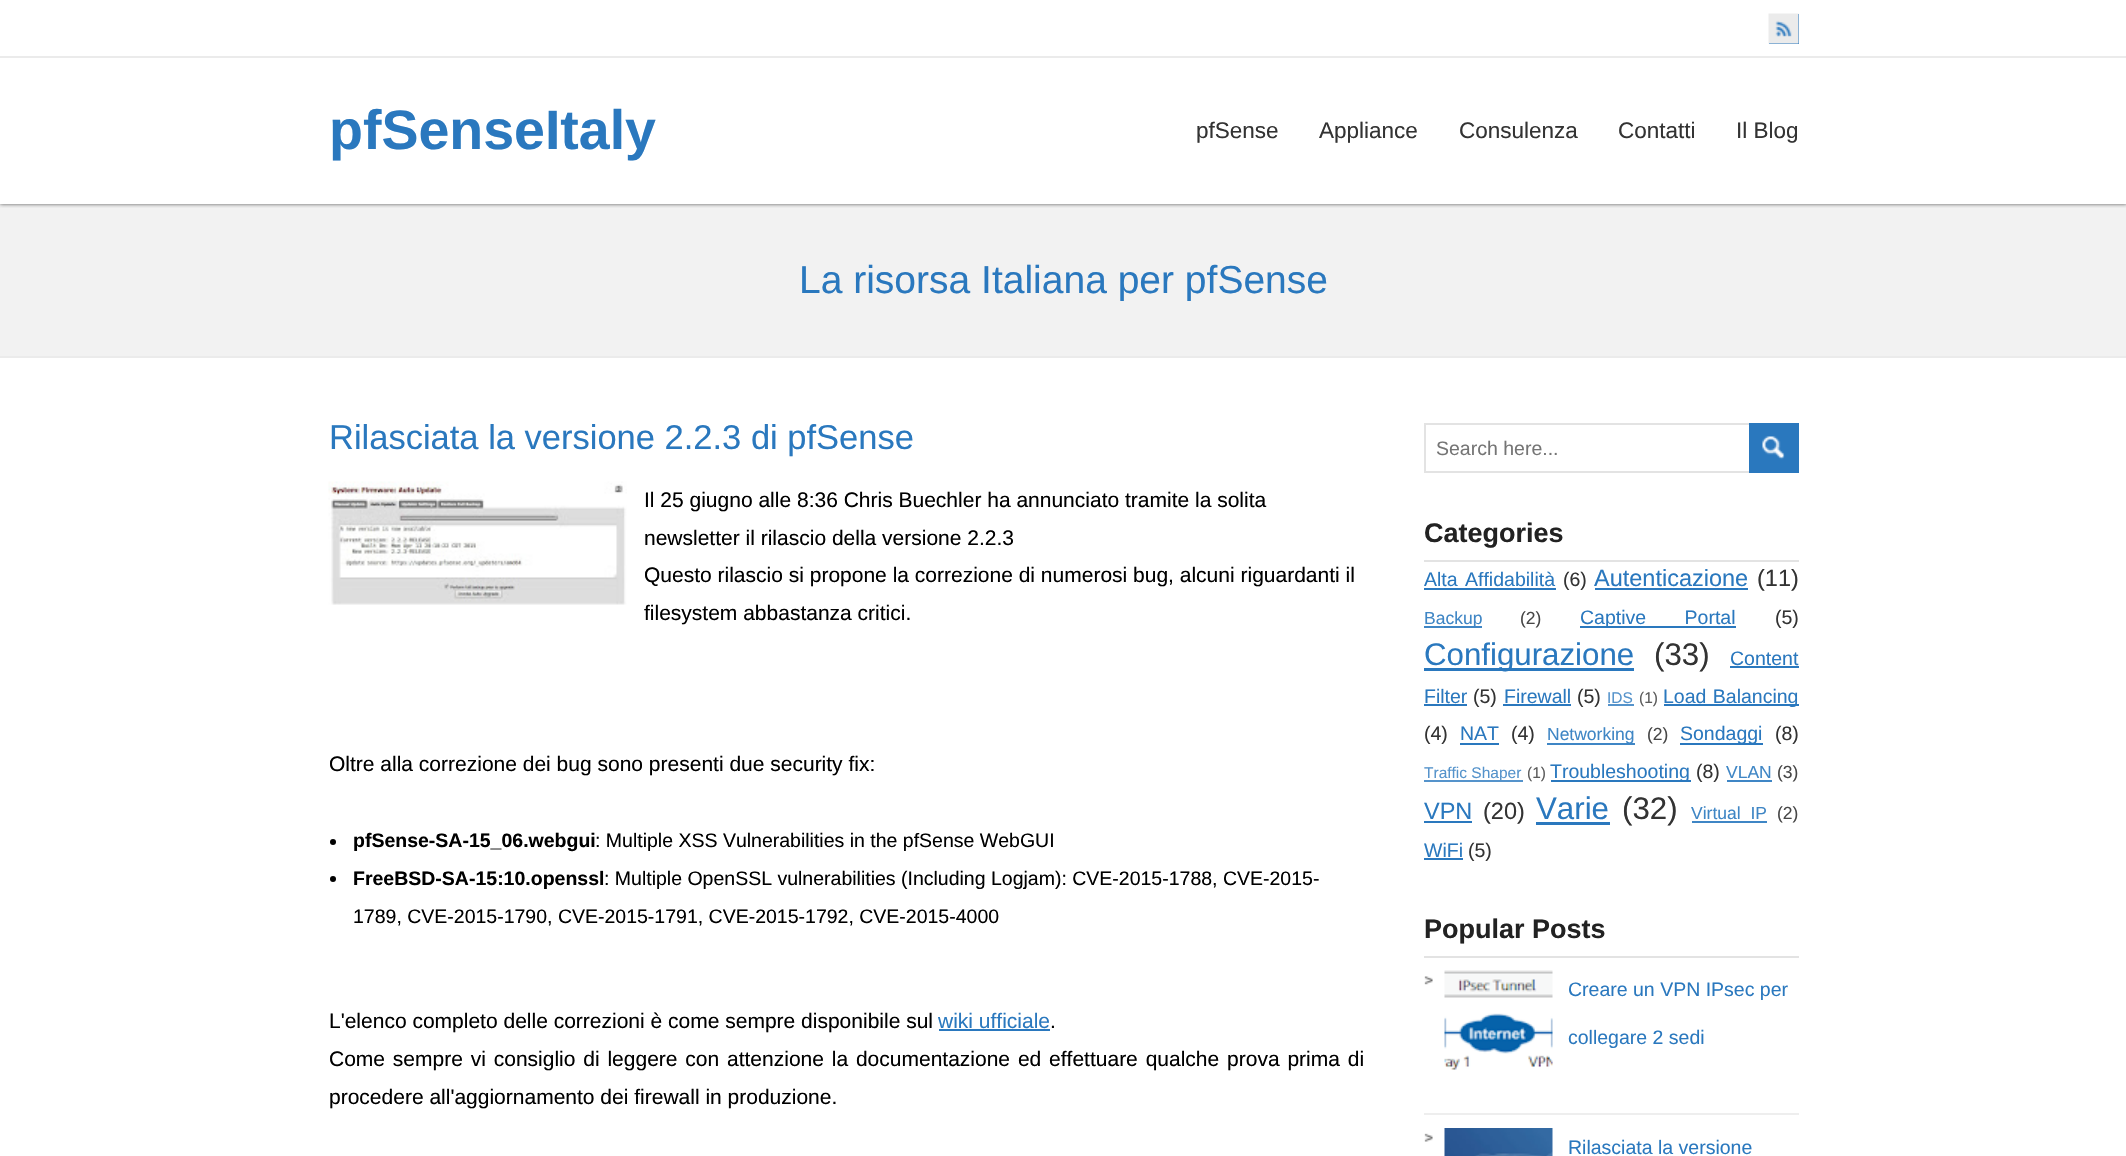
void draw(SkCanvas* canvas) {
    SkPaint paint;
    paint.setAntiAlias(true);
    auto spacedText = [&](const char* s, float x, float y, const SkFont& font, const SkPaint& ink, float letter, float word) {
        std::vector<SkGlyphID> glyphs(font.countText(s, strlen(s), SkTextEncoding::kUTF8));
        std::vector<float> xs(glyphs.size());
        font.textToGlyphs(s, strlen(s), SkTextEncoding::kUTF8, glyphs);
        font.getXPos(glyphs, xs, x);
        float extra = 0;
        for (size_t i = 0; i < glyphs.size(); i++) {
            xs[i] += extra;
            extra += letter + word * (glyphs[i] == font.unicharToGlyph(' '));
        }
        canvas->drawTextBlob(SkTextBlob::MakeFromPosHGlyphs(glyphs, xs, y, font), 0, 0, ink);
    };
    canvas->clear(0xFFFFFFFF);
    paint.setColor(0xFFF2F2F2);
    canvas->drawRect(SkRect::MakeXYWH(0, 204, 2126, 152), paint);
    canvas->save();
    canvas->clipRect(SkRect::MakeXYWH(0, 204, 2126, 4));
    paint.setColor(0xFF555555);
    paint.setMaskFilter(SkMaskFilter::MakeBlur(kNormal_SkBlurStyle, 2));
    canvas->drawRect(SkRect::MakeXYWH(0, 57, 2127, 147), paint);
    paint.setMaskFilter(nullptr);
    canvas->restore();
    paint.setColor(0xFFFFFFFF);
    canvas->drawRect(SkRect::MakeXYWH(0, 53, 2126, 3), paint);
    paint.setColor(0xFFEBEBEB);
    canvas->drawRect(SkRect::MakeXYWH(0, 56, 2126, 2), paint);
    paint.setColor(0xFF2A78BE);
    canvas->drawRect(SkRect::MakeXYWH(1769, 14, 30, 30), paint);
    canvas->drawImageRect(SkImages::DeferredFromEncodedData(SkData::MakeFromFileName("img1.png")), SkRect::MakeXYWH(1768, 13, 31, 31), SkSamplingOptions());
    SkFont font1(fontMgr->matchFamilyStyle("Liberation Sans", SkFontStyle::Bold()), 55.5f);
    font1.setSubpixel(true);
    canvas->drawString("pfSenseItaly", 329, 149, font1, paint);
    SkFont font2(fontMgr->matchFamilyStyle("Liberation Sans", SkFontStyle::Normal()), 22.5f);
    font2.setSubpixel(true);
    paint.setColor(0xFF333333);
    canvas->drawString("pfSense", 1196, 138, font2, paint);
    canvas->drawString("Appliance", 1319, 138, font2, paint);
    canvas->drawString("Consulenza", 1459, 138, font2, paint);
    canvas->drawString("Contatti", 1618, 138, font2, paint);
    canvas->drawString("Il Blog", 1736, 138, font2, paint);
    paint.setColor(0xFFEBEBEB);
    canvas->drawRect(SkRect::MakeXYWH(0, 356, 2126, 2), paint);
    SkFont font3(fontMgr->matchFamilyStyle("Liberation Sans", SkFontStyle::Normal()), 39);
    font3.setSubpixel(true);
    paint.setColor(0xFF2A78BE);
    canvas->drawString("La risorsa Italiana per pfSense", 799, 293, font3, paint);
    SkFont font4(fontMgr->matchFamilyStyle("Liberation Sans", SkFontStyle::Normal()), 34.5f);
    font4.setSubpixel(true);
    canvas->drawString("Rilasciata la versione 2.2.3 di pfSense", 329, 449, font4, paint);
    canvas->drawImageRect(SkImages::DeferredFromEncodedData(SkData::MakeFromFileName("img2.png")), SkRect::MakeXYWH(328, 481, 299, 124), SkSamplingOptions());
    SkFont font5(fontMgr->matchFamilyStyle("Liberation Sans", SkFontStyle::Normal()), 21);
    font5.setSubpixel(true);
    paint.setColor(0xFF000000);
    canvas->drawString("Il 25 giugno alle 8:36 Chris Buechler ha annunciato tramite la solita", 644, 507, font5, paint);
    canvas->drawString("newsletter il rilascio della versione 2.2.3", 644, 545, font5, paint);
    canvas->drawString("Questo rilascio si propone la correzione di numerosi bug, alcuni riguardanti il", 644, 582, font5, paint);
    canvas->drawString("filesystem abbastanza critici.", 644, 620, font5, paint);
    canvas->drawString("Oltre alla correzione dei bug sono presenti due security fix:", 329, 771, font5, paint);
    canvas->drawCircle(333, 842, 3, paint);
    SkFont font6(fontMgr->matchFamilyStyle("Liberation Sans", SkFontStyle::Bold()), 19.5f);
    font6.setSubpixel(true);
    canvas->drawString("pfSense-SA-15_06.webgui", 353, 847, font6, paint);
    SkFont font7(fontMgr->matchFamilyStyle("Liberation Sans", SkFontStyle::Normal()), 19.5f);
    font7.setSubpixel(true);
    canvas->drawString(": Multiple XSS Vulnerabilities in the pfSense WebGUI", 595, 847, font7, paint);
    canvas->drawCircle(333, 879, 3, paint);
    canvas->drawString("FreeBSD-SA-15:10.openssl", 353, 885, font6, paint);
    canvas->drawString(": Multiple OpenSSL vulnerabilities (Including Logjam): CVE-2015-1788, CVE-2015-", 604, 885, font7, paint);
    canvas->drawString("1789, CVE-2015-1790, CVE-2015-1791, CVE-2015-1792, CVE-2015-4000", 353, 923, font7, paint);
    canvas->drawString("L'elenco completo delle correzioni è come sempre disponibile sul", 329, 1028, font5, paint);
    paint.setColor(0xFF2A78BE);
    canvas->drawString("wiki ufficiale", 938, 1028, font5, paint);
    canvas->drawRect(SkRect::MakeXYWH(939, 1029, 111, 2), paint);
    paint.setColor(0xFF000000);
    canvas->drawString(".", 1050, 1028, font5, paint);
    spacedText("Come sempre vi consiglio di leggere con attenzione la documentazione ed effettuare qualche prova prima di", 329, 1066, font5, paint, 0, 2);
    canvas->drawString("procedere all'aggiornamento dei firewall in produzione.", 329, 1104, font5, paint);
    paint.setStyle(SkPaint::kStroke_Style);
    paint.setStrokeWidth(2);
    paint.setColor(0xFFE3E3E3);
    canvas->drawRect(SkRect::MakeXYWH(1425, 424, 373, 48), paint);
    paint.setStyle(SkPaint::kFill_Style);
    paint.setColor(0xFF757575);
    canvas->drawString("Search here...", 1436, 455, font7, paint);
    paint.setColor(0xFF2A78BE);
    canvas->drawRect(SkRect::MakeXYWH(1749, 423, 50, 50), paint);
    canvas->drawImageRect(SkImages::DeferredFromEncodedData(SkData::MakeFromFileName("img3.png")), SkRect::MakeXYWH(1762, 436, 23, 24), SkSamplingOptions());
    paint.setColor(0xFFE3E3E3);
    canvas->drawRect(SkRect::MakeXYWH(1424, 560, 375, 2), paint);
    SkFont font8(fontMgr->matchFamilyStyle("Liberation Sans", SkFontStyle::Bold()), 27);
    font8.setSubpixel(true);
    paint.setColor(0xFF222222);
    canvas->drawString("Categories", 1424, 542, font8, paint);
    paint.setColor(0xFF2A78BE);
    spacedText("Alta Affidabilità", 1424, 586, font7, paint, 0, 2);
    canvas->drawRect(SkRect::MakeXYWH(1424, 588, 132, 2), paint);
    paint.setColor(0xFF333333);
    canvas->drawString("(6)", 1563, 586, font7, paint);
    SkFont font9(fontMgr->matchFamilyStyle("Liberation Sans", SkFontStyle::Normal()), 23.5f);
    font9.setSubpixel(true);
    paint.setColor(0xFF2A78BE);
    canvas->drawString("Autenticazione", 1594, 586, font9, paint);
    canvas->drawRect(SkRect::MakeXYWH(1595, 588, 153, 2), paint);
    paint.setColor(0xFF333333);
    canvas->drawString("(11)", 1757, 586, font9, paint);
    paint.setColor(0xFF3F86C5);
    canvas->drawRect(SkRect::MakeXYWH(1424, 626, 58, 2), paint);
    SkFont font10(fontMgr->matchFamilyStyle("Liberation Sans", SkFontStyle::Normal()), 17.5f);
    font10.setSubpixel(true);
    canvas->drawString("Backup", 1424, 624, font10, paint);
    paint.setColor(0xFF474747);
    canvas->drawString("(2)", 1520, 624, font10, paint);
    paint.setColor(0xFF2A78BE);
    canvas->drawRect(SkRect::MakeXYWH(1580, 626, 156, 2), paint);
    spacedText("Captive Portal", 1580, 624, font7, paint, 0, 33);
    paint.setColor(0xFF333333);
    canvas->drawString("(5)", 1775, 624, font7, paint);
    paint.setColor(0xFF2A78BE);
    canvas->drawRect(SkRect::MakeXYWH(1424, 668, 210, 3), paint);
    SkFont font11(fontMgr->matchFamilyStyle("Liberation Sans", SkFontStyle::Normal()), 31.25f);
    font11.setSubpixel(true);
    canvas->drawString("Configurazione", 1424, 665, font11, paint);
    paint.setColor(0xFF333333);
    canvas->drawString("(33)", 1654, 665, font11, paint);
    paint.setColor(0xFF2A78BE);
    canvas->drawString("Content", 1730, 665, font7, paint);
    canvas->drawRect(SkRect::MakeXYWH(1730, 666, 69, 2), paint);
    canvas->drawString("Filter", 1424, 703, font7, paint);
    canvas->drawRect(SkRect::MakeXYWH(1424, 704, 43, 2), paint);
    paint.setColor(0xFF333333);
    canvas->drawString("(5)", 1473, 703, font7, paint);
    paint.setColor(0xFF2A78BE);
    canvas->drawString("Firewall", 1504, 703, font7, paint);
    canvas->drawRect(SkRect::MakeXYWH(1503, 704, 68, 2), paint);
    paint.setColor(0xFF333333);
    canvas->drawString("(5)", 1577, 703, font7, paint);
    SkFont font12(fontMgr->matchFamilyStyle("Liberation Sans", SkFontStyle::Normal()), 15.5f);
    font12.setSubpixel(true);
    paint.setColor(0xFF5593CB);
    canvas->drawString("IDS", 1607, 703, font12, paint);
    canvas->drawRect(SkRect::MakeXYWH(1608, 704, 26, 2), paint);
    paint.setColor(0xFF5C5C5C);
    canvas->drawString("(1)", 1639, 703, font12, paint);
    paint.setColor(0xFF2A78BE);
    canvas->drawRect(SkRect::MakeXYWH(1664, 704, 135, 2), paint);
    spacedText("Load Balancing", 1663, 703, font7, paint, 0, 1);
    paint.setColor(0xFF333333);
    canvas->drawString("(4)", 1424, 740, font7, paint);
    paint.setColor(0xFF2A78BE);
    canvas->drawString("NAT", 1460, 740, font7, paint);
    canvas->drawRect(SkRect::MakeXYWH(1460, 743, 39, 2), paint);
    paint.setColor(0xFF333333);
    canvas->drawString("(4)", 1511, 740, font7, paint);
    paint.setColor(0xFF3F86C5);
    canvas->drawRect(SkRect::MakeXYWH(1547, 743, 88, 2), paint);
    canvas->drawString("Networking", 1547, 740, font10, paint);
    paint.setColor(0xFF474747);
    canvas->drawString("(2)", 1647, 740, font10, paint);
    paint.setColor(0xFF2A78BE);
    canvas->drawRect(SkRect::MakeXYWH(1680, 743, 83, 2), paint);
    canvas->drawString("Sondaggi", 1680, 740, font7, paint);
    paint.setColor(0xFF333333);
    canvas->drawString("(8)", 1775, 740, font7, paint);
    paint.setColor(0xFF5593CB);
    canvas->drawRect(SkRect::MakeXYWH(1424, 780, 99, 2), paint);
    canvas->drawString("Traffic Shaper", 1424, 778, font12, paint);
    paint.setColor(0xFF5C5C5C);
    canvas->drawString("(1)", 1527, 778, font12, paint);
    paint.setColor(0xFF2A78BE);
    canvas->drawRect(SkRect::MakeXYWH(1551, 780, 140, 2), paint);
    canvas->drawString("Troubleshooting", 1550, 778, font7, paint);
    paint.setColor(0xFF333333);
    canvas->drawString("(8)", 1696, 778, font7, paint);
    paint.setColor(0xFF3F86C5);
    canvas->drawString("VLAN", 1726, 778, font10, paint);
    canvas->drawRect(SkRect::MakeXYWH(1727, 780, 45, 2), paint);
    paint.setColor(0xFF474747);
    canvas->drawString("(3)", 1777, 778, font10, paint);
    paint.setColor(0xFF2A78BE);
    canvas->drawString("VPN", 1424, 819, font9, paint);
    canvas->drawRect(SkRect::MakeXYWH(1424, 821, 48, 2), paint);
    paint.setColor(0xFF333333);
    canvas->drawString("(20)", 1483, 819, font9, paint);
    paint.setColor(0xFF2A78BE);
    canvas->drawString("Varie", 1536, 819, font11, paint);
    canvas->drawRect(SkRect::MakeXYWH(1536, 822, 74, 3), paint);
    paint.setColor(0xFF333333);
    canvas->drawString("(32)", 1622, 819, font11, paint);
    paint.setColor(0xFF3F86C5);
    spacedText("Virtual IP", 1691, 819, font10, paint, 0, 5);
    canvas->drawRect(SkRect::MakeXYWH(1692, 821, 75, 2), paint);
    paint.setColor(0xFF474747);
    canvas->drawString("(2)", 1777, 819, font10, paint);
    paint.setColor(0xFF2A78BE);
    canvas->drawString("WiFi", 1424, 857, font7, paint);
    canvas->drawRect(SkRect::MakeXYWH(1424, 858, 39, 2), paint);
    paint.setColor(0xFF333333);
    canvas->drawString("(5)", 1468, 857, font7, paint);
    paint.setColor(0xFFE3E3E3);
    canvas->drawRect(SkRect::MakeXYWH(1424, 956, 375, 2), paint);
    paint.setColor(0xFF222222);
    canvas->drawString("Popular Posts", 1424, 938, font8, paint);
    canvas->drawImageRect(SkImages::DeferredFromEncodedData(SkData::MakeFromFileName("img4.png")), SkRect::MakeXYWH(1424, 976, 9, 9), SkSamplingOptions());
    paint.setColor(0xFFEEEEEE);
    canvas->drawRect(SkRect::MakeXYWH(1424, 1113, 375, 2), paint);
    canvas->drawImageRect(SkImages::DeferredFromEncodedData(SkData::MakeFromFileName("img5.png")), SkRect::MakeXYWH(1444, 970, 109, 100), SkSamplingOptions());
    paint.setColor(0xFF2A78BE);
    canvas->drawString("Creare un VPN IPsec per", 1568, 996, font7, paint);
    canvas->drawString("collegare 2 sedi", 1568, 1044, font7, paint);
    canvas->drawImageRect(SkImages::DeferredFromEncodedData(SkData::MakeFromFileName("img6.png")), SkRect::MakeXYWH(1424, 1133, 9, 9), SkSamplingOptions());
    canvas->drawImageRect(SkImages::DeferredFromEncodedData(SkData::MakeFromFileName("img7.png")), SkRect::MakeXYWH(1444, 1128, 109, 28), SkSamplingOptions());
    canvas->drawString("Rilasciata la versione", 1568, 1154, font7, paint);
}
